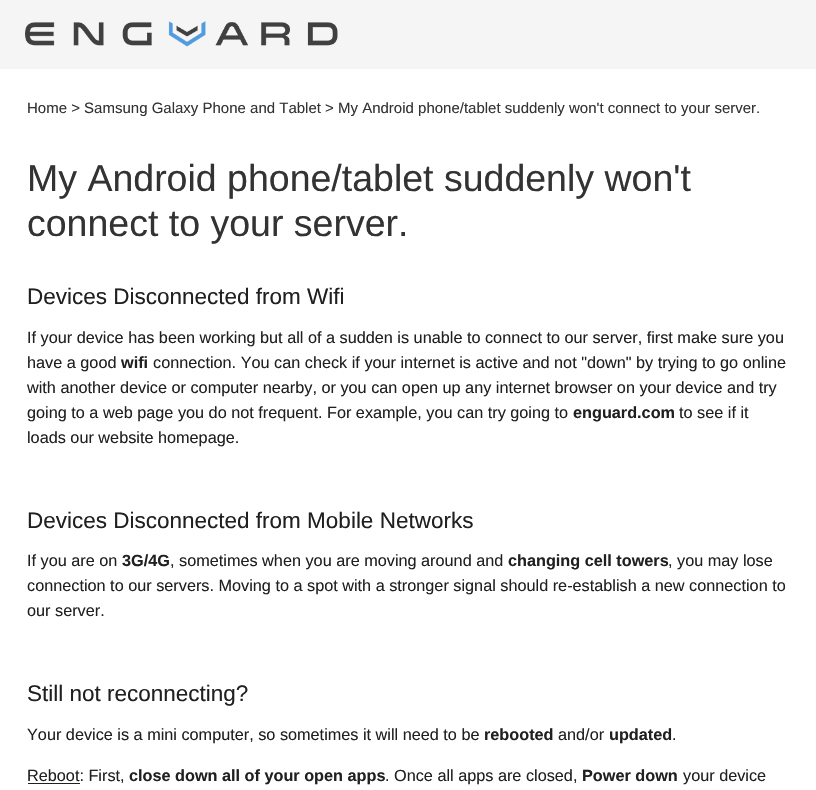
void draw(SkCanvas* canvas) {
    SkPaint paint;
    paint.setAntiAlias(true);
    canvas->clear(0xFFFFFFFF);
    paint.setColor(0xFFF5F5F5);
    canvas->drawRect(SkRect::MakeXYWH(0, 0, 816, 69), paint);
    canvas->drawImageRect(SkImages::DeferredFromEncodedData(SkData::MakeFromFileName("img1.png")), SkRect::MakeXYWH(25, 21, 313, 26), SkSamplingOptions());
    SkFont font1(fontMgr->matchFamilyStyle("Liberation Sans", SkFontStyle::Normal()), 15);
    font1.setSubpixel(true);
    paint.setColor(0xFF333333);
    canvas->drawString("Home > Samsung Galaxy Phone and Tablet > My Android phone/tablet suddenly won't connect to your server.", 27, 113, font1, paint);
    SkFont font2(fontMgr->matchFamilyStyle("Liberation Sans", SkFontStyle::Normal()), 37.5f);
    font2.setSubpixel(true);
    canvas->drawString("My Android phone/tablet suddenly won't", 27, 191, font2, paint);
    canvas->drawString("connect to your server.", 27, 236, font2, paint);
    SkFont font3(fontMgr->matchFamilyStyle("Liberation Sans", SkFontStyle::Normal()), 22.5f);
    font3.setSubpixel(true);
    paint.setColor(0xFF202020);
    canvas->drawString("Devices Disconnected from Wifi", 27, 304, font3, paint);
    SkFont font4(fontMgr->matchFamilyStyle("Liberation Sans", SkFontStyle::Normal()), 16.25f);
    font4.setSubpixel(true);
    canvas->drawString("If your device has been working but all of a sudden is unable to connect to our server, first make sure you", 27, 343, font4, paint);
    canvas->drawString("have a good", 27, 368, font4, paint);
    SkFont font5(fontMgr->matchFamilyStyle("Liberation Sans", SkFontStyle::Bold()), 16.25f);
    font5.setSubpixel(true);
    canvas->drawString("wifi", 121, 368, font5, paint);
    canvas->drawString("connection. You can check if your internet is active and not \"down\" by trying to go online", 153, 368, font4, paint);
    canvas->drawString("with another device or computer nearby, or you can open up any internet browser on your device and try", 27, 393, font4, paint);
    canvas->drawString("going to a web page you do not frequent. For example, you can try going to", 27, 418, font4, paint);
    canvas->drawString("enguard.com", 573, 418, font5, paint);
    canvas->drawString("to see if it", 679, 418, font4, paint);
    canvas->drawString("loads our website homepage.", 27, 443, font4, paint);
    canvas->drawString("Devices Disconnected from Mobile Networks", 27, 528, font3, paint);
    canvas->drawString("If you are on", 27, 566, font4, paint);
    canvas->drawString("3G/4G", 122, 566, font5, paint);
    canvas->drawString(", sometimes when you are moving around and", 170, 566, font4, paint);
    canvas->drawString("changing cell towers", 508, 566, font5, paint);
    canvas->drawString(", you may lose", 668, 566, font4, paint);
    canvas->drawString("connection to our servers. Moving to a spot with a stronger signal should re-establish a new connection to", 27, 591, font4, paint);
    canvas->drawString("our server.", 27, 616, font4, paint);
    canvas->drawString("Still not reconnecting?", 27, 701, font3, paint);
    canvas->drawString("Your device is a mini computer, so sometimes it will need to be", 27, 740, font4, paint);
    canvas->drawString("rebooted", 484, 740, font5, paint);
    canvas->drawString("and/or", 558, 740, font4, paint);
    canvas->drawString("updated", 609, 740, font5, paint);
    canvas->drawString(".", 672, 740, font4, paint);
    canvas->drawRect(SkRect::MakeXYWH(28, 783, 52, 1), paint);
    canvas->drawString("Reboot: First,", 27, 781, font4, paint);
    canvas->drawString("close down all of your open apps", 129, 781, font5, paint);
    canvas->drawString(". Once all apps are closed,", 385, 781, font4, paint);
    canvas->drawString("Power down", 582, 781, font5, paint);
    canvas->drawString("your device", 683, 781, font4, paint);
}
